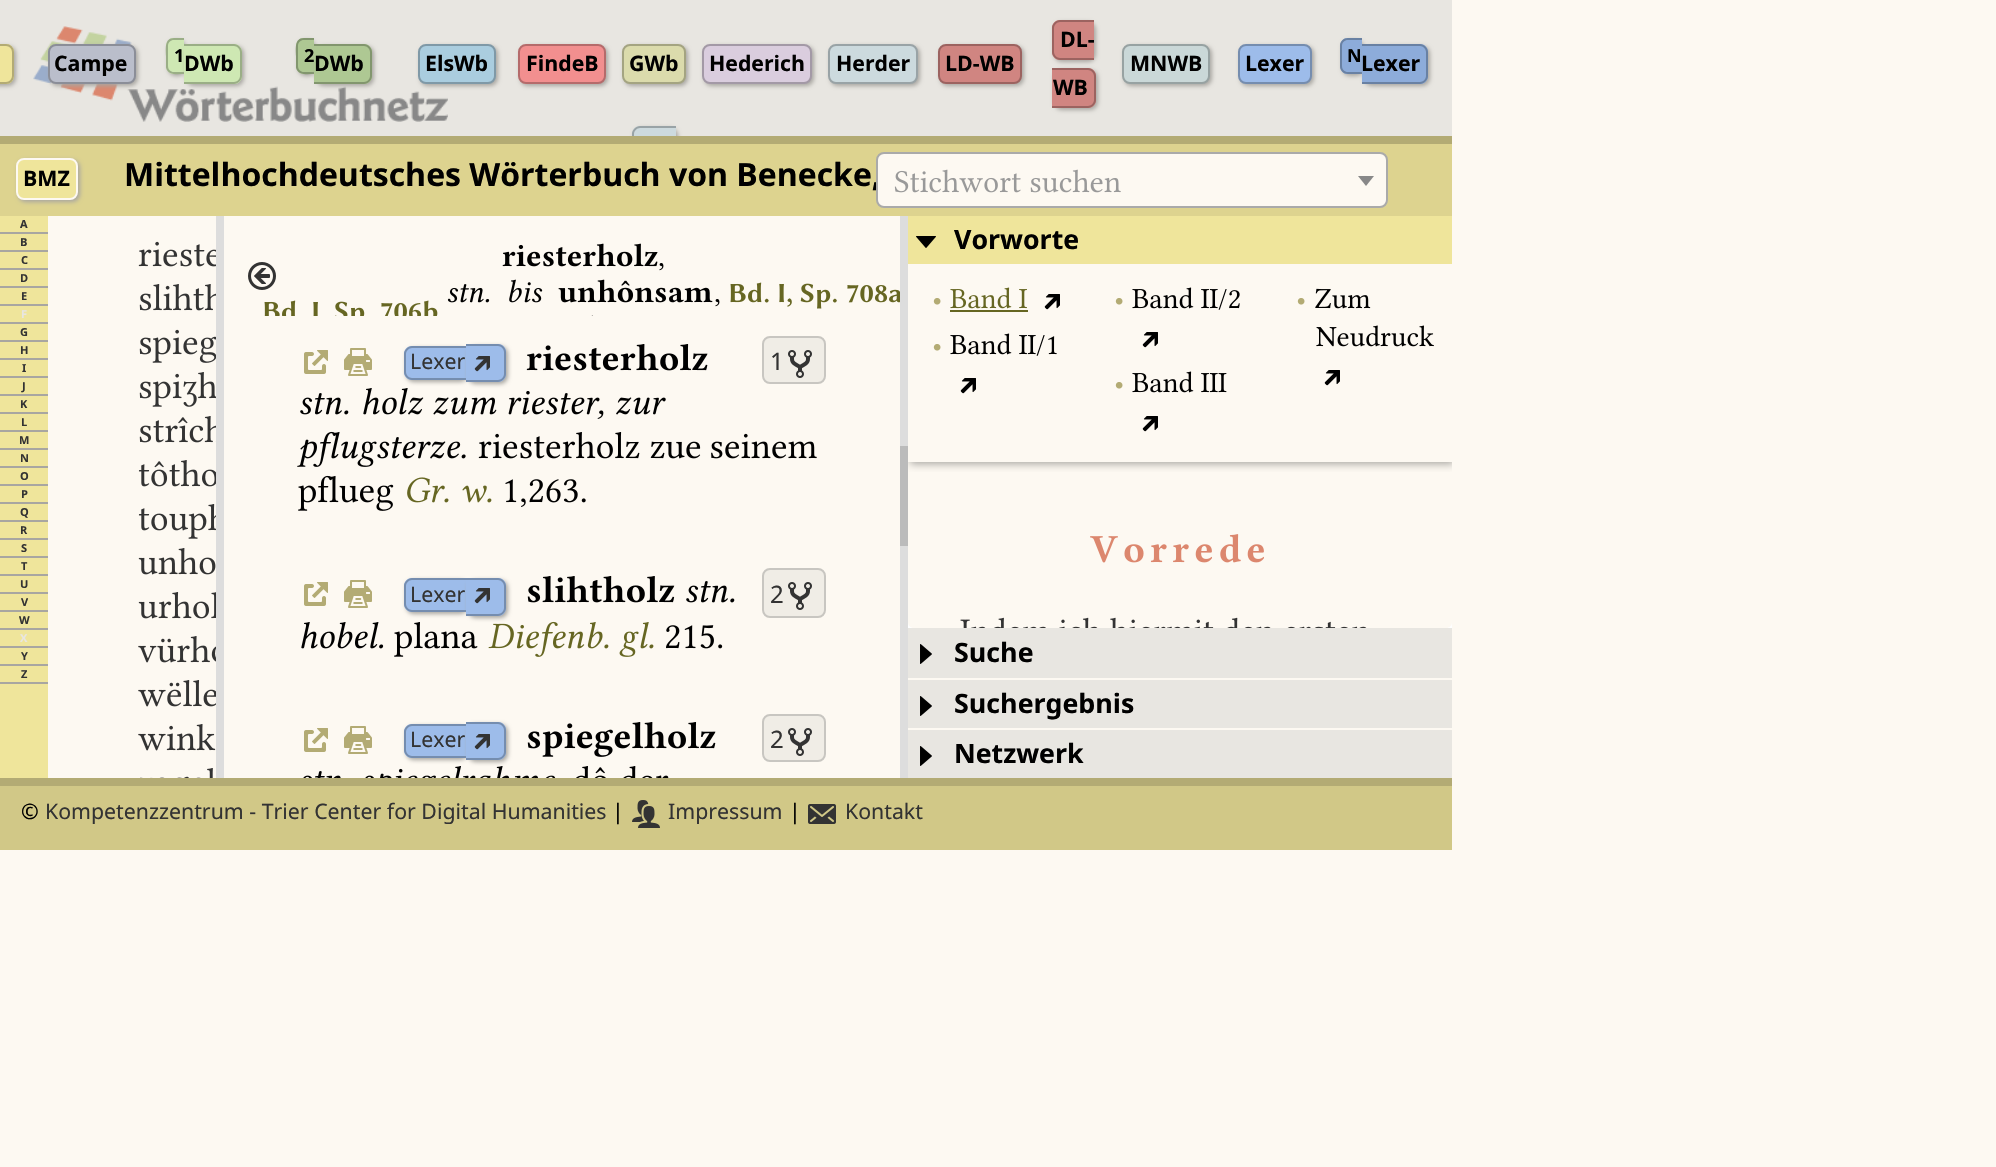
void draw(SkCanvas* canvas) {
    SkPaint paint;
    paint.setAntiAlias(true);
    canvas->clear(0xFFFDF9F2);
    paint.setColor(0xFFB3AB74);
    canvas->drawRect(SkRect::MakeXYWH(0, 136, 1452, 8), paint);
    paint.setColor(0xFFE8E6E1);
    canvas->drawRect(SkRect::MakeXYWH(0, 0, 1452, 136), paint);
    canvas->drawImageRect(SkImages::DeferredFromEncodedData(SkData::MakeFromFileName("img1.png")), SkRect::MakeXYWH(33, 26, 415, 96), SkSamplingOptions());
    paint.setColor(0xFFA8A6A1);
    paint.setMaskFilter(SkMaskFilter::MakeBlur(kNormal_SkBlurStyle, 2));
    canvas->drawRoundRect(SkRect::MakeXYWH(-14, 46, 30, 40), 8, 8, paint);
    paint.setMaskFilter(nullptr);
    paint.setColor(0xFFEFE59B);
    canvas->drawPath(SkPathBuilder().moveTo(0, 44).lineTo(6, 44).cubicTo(10.5f, 44, 14, 47.5f, 14, 52).lineTo(14, 76).cubicTo(14, 80.5f, 10.5f, 84, 6, 84).lineTo(0, 84).close().detach(), paint);
    paint.setStyle(SkPaint::kStroke_Style);
    paint.setStrokeWidth(2);
    paint.setColor(0xFFB3AB74);
    canvas->drawRoundRect(SkRect::MakeXYWH(-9, 45, 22, 38), 7, 7, paint);
    paint.setStyle(SkPaint::kFill_Style);
    paint.setColor(0xFFA8A6A1);
    paint.setMaskFilter(SkMaskFilter::MakeBlur(kNormal_SkBlurStyle, 2));
    canvas->drawRoundRect(SkRect::MakeXYWH(50, 46, 88, 40), 8, 8, paint);
    paint.setMaskFilter(nullptr);
    paint.setColor(0xFFBABECB);
    canvas->drawRoundRect(SkRect::MakeXYWH(49, 45, 86, 38), 7, 7, paint);
    paint.setStyle(SkPaint::kStroke_Style);
    paint.setColor(0xFF8B8E98);
    canvas->drawRoundRect(SkRect::MakeXYWH(49, 45, 86, 38), 7, 7, paint);
    SkFont font1(fontMgr->matchFamilyStyle("Noto Sans", SkFontStyle::Bold()), 21.3f);
    font1.setSubpixel(true);
    paint.setStyle(SkPaint::kFill_Style);
    paint.setColor(0xFF000000);
    canvas->drawString("Campe", 54, 71, font1, paint);
    paint.setColor(0xFFA8A6A1);
    paint.setMaskFilter(SkMaskFilter::MakeBlur(kNormal_SkBlurStyle, 2));
    canvas->drawRoundRect(SkRect::MakeXYWH(168, 40, 18, 36), 8, 8, paint);
    paint.setMaskFilter(nullptr);
    paint.setColor(0xFFCEE8B3);
    canvas->drawPath(SkPathBuilder().moveTo(174, 38).lineTo(184, 38).lineTo(184, 74).lineTo(174, 74).cubicTo(169.5f, 74, 166, 70.5f, 166, 66).lineTo(166, 46).cubicTo(166, 41.5f, 169.5f, 38, 174, 38).close().detach(), paint);
    paint.setColor(0xFF9AAE86);
    canvas->drawPath(SkPathBuilder(SkPathFillType::kEvenOdd).moveTo(174, 38).lineTo(184, 38).lineTo(184, 74).cubicTo(178, 74, 168, 76, 166, 67.5f).lineTo(166, 56).cubicTo(166, 49.5f, 164, 38, 174, 38).close().moveTo(174, 40).lineTo(184, 40).lineTo(184, 72).lineTo(174, 72).cubicTo(170.5f, 72, 168, 69.5f, 168, 66).lineTo(168, 46).cubicTo(168, 42.5f, 170.5f, 40, 174, 40).close().detach(), paint);
    paint.setColor(0xFFA8A6A1);
    paint.setMaskFilter(SkMaskFilter::MakeBlur(kNormal_SkBlurStyle, 2));
    canvas->drawRoundRect(SkRect::MakeXYWH(186, 46, 58, 40), 8, 8, paint);
    paint.setMaskFilter(nullptr);
    SkFont font2(fontMgr->matchFamilyStyle("Noto Sans", SkFontStyle::Bold()), 18);
    font2.setSubpixel(true);
    paint.setColor(0xFF000000);
    canvas->drawString("1", 174, 62, font2, paint);
    paint.setColor(0xFFCEE8B3);
    canvas->drawPath(SkPathBuilder().moveTo(184, 44).lineTo(234, 44).cubicTo(238.5f, 44, 242, 47.5f, 242, 52).lineTo(242, 76).cubicTo(242, 80.5f, 238.5f, 84, 234, 84).lineTo(184, 84).close().detach(), paint);
    paint.setColor(0xFF9AAE86);
    canvas->drawPath(SkPathBuilder(SkPathFillType::kEvenOdd).moveTo(184, 44).lineTo(234, 44).cubicTo(238, 44, 242, 48, 242, 52).lineTo(242, 76).cubicTo(242, 80, 238, 84, 234, 84).lineTo(184, 84).close().moveTo(184, 46).lineTo(234, 46).cubicTo(237, 46, 240, 49, 240, 52).lineTo(240, 76).cubicTo(240, 79, 237, 82, 234, 82).lineTo(184, 82).close().detach(), paint);
    paint.setColor(0xFF000000);
    canvas->drawString("DWb", 184, 71, font1, paint);
    paint.setColor(0xFFA8A6A1);
    paint.setMaskFilter(SkMaskFilter::MakeBlur(kNormal_SkBlurStyle, 2));
    canvas->drawRoundRect(SkRect::MakeXYWH(298, 40, 18, 36), 8, 8, paint);
    paint.setMaskFilter(nullptr);
    paint.setColor(0xFFAEC893);
    canvas->drawPath(SkPathBuilder().moveTo(304, 38).lineTo(314, 38).lineTo(314, 74).lineTo(304, 74).cubicTo(299.5f, 74, 296, 70.5f, 296, 66).lineTo(296, 46).cubicTo(296, 41.5f, 299.5f, 38, 304, 38).close().detach(), paint);
    paint.setColor(0xFF82966E);
    canvas->drawPath(SkPathBuilder(SkPathFillType::kEvenOdd).moveTo(304, 38).lineTo(314, 38).lineTo(314, 74).cubicTo(308, 74, 298, 76, 296, 67.5f).lineTo(296, 56).cubicTo(296, 49.5f, 294, 38, 304, 38).close().moveTo(304, 40).lineTo(314, 40).lineTo(314, 72).lineTo(304, 72).cubicTo(300.5f, 72, 298, 69.5f, 298, 66).lineTo(298, 46).cubicTo(298, 42.5f, 300.5f, 40, 304, 40).close().detach(), paint);
    paint.setColor(0xFFA8A6A1);
    paint.setMaskFilter(SkMaskFilter::MakeBlur(kNormal_SkBlurStyle, 2));
    canvas->drawRoundRect(SkRect::MakeXYWH(316, 46, 58, 40), 8, 8, paint);
    paint.setMaskFilter(nullptr);
    paint.setColor(0xFF000000);
    canvas->drawString("2", 304, 62, font2, paint);
    paint.setColor(0xFFAEC893);
    canvas->drawPath(SkPathBuilder().moveTo(314, 44).lineTo(364, 44).cubicTo(368.5f, 44, 372, 47.5f, 372, 52).lineTo(372, 76).cubicTo(372, 80.5f, 368.5f, 84, 364, 84).lineTo(314, 84).close().detach(), paint);
    paint.setColor(0xFF82966E);
    canvas->drawPath(SkPathBuilder(SkPathFillType::kEvenOdd).moveTo(314, 44).lineTo(364, 44).cubicTo(368, 44, 372, 48, 372, 52).lineTo(372, 76).cubicTo(372, 80, 368, 84, 364, 84).lineTo(314, 84).close().moveTo(314, 46).lineTo(364, 46).cubicTo(367, 46, 370, 49, 370, 52).lineTo(370, 76).cubicTo(370, 79, 367, 82, 364, 82).lineTo(314, 82).close().detach(), paint);
    paint.setColor(0xFF000000);
    canvas->drawString("DWb", 314, 71, font1, paint);
    paint.setColor(0xFFA8A6A1);
    paint.setMaskFilter(SkMaskFilter::MakeBlur(kNormal_SkBlurStyle, 2));
    canvas->drawRoundRect(SkRect::MakeXYWH(420, 46, 78, 40), 8, 8, paint);
    paint.setMaskFilter(nullptr);
    paint.setColor(0xFFAACDDF);
    canvas->drawRoundRect(SkRect::MakeXYWH(419, 45, 76, 38), 7, 7, paint);
    paint.setStyle(SkPaint::kStroke_Style);
    paint.setColor(0xFF7F99A7);
    canvas->drawRoundRect(SkRect::MakeXYWH(419, 45, 76, 38), 7, 7, paint);
    paint.setStyle(SkPaint::kFill_Style);
    paint.setColor(0xFF000000);
    canvas->drawString("ElsWb", 425, 71, font1, paint);
    paint.setColor(0xFFA8A6A1);
    paint.setMaskFilter(SkMaskFilter::MakeBlur(kNormal_SkBlurStyle, 2));
    canvas->drawRoundRect(SkRect::MakeXYWH(520, 46, 88, 40), 8, 8, paint);
    paint.setMaskFilter(nullptr);
    paint.setColor(0xFFF28F8F);
    canvas->drawRoundRect(SkRect::MakeXYWH(519, 45, 86, 38), 7, 7, paint);
    paint.setStyle(SkPaint::kStroke_Style);
    paint.setColor(0xFFB56B6B);
    canvas->drawRoundRect(SkRect::MakeXYWH(519, 45, 86, 38), 7, 7, paint);
    paint.setStyle(SkPaint::kFill_Style);
    paint.setColor(0xFF000000);
    canvas->drawString("FindeB", 526, 71, font1, paint);
    paint.setColor(0xFFA8A6A1);
    paint.setMaskFilter(SkMaskFilter::MakeBlur(kNormal_SkBlurStyle, 2));
    canvas->drawRoundRect(SkRect::MakeXYWH(624, 46, 64, 40), 8, 8, paint);
    paint.setMaskFilter(nullptr);
    paint.setColor(0xFFDBDBAC);
    canvas->drawRoundRect(SkRect::MakeXYWH(623, 45, 62, 38), 7, 7, paint);
    paint.setStyle(SkPaint::kStroke_Style);
    paint.setColor(0xFFA4A481);
    canvas->drawRoundRect(SkRect::MakeXYWH(623, 45, 62, 38), 7, 7, paint);
    paint.setStyle(SkPaint::kFill_Style);
    paint.setColor(0xFF000000);
    canvas->drawString("GWb", 629, 71, font1, paint);
    paint.setColor(0xFFA8A6A1);
    paint.setMaskFilter(SkMaskFilter::MakeBlur(kNormal_SkBlurStyle, 2));
    canvas->drawRoundRect(SkRect::MakeXYWH(704, 46, 110, 40), 8, 8, paint);
    paint.setMaskFilter(nullptr);
    paint.setColor(0xFFDACDDE);
    canvas->drawRoundRect(SkRect::MakeXYWH(703, 45, 108, 38), 7, 7, paint);
    paint.setStyle(SkPaint::kStroke_Style);
    paint.setColor(0xFFA399A6);
    canvas->drawRoundRect(SkRect::MakeXYWH(703, 45, 108, 38), 7, 7, paint);
    paint.setStyle(SkPaint::kFill_Style);
    paint.setColor(0xFF000000);
    canvas->drawString("Hederich", 709, 71, font1, paint);
    paint.setColor(0xFFA8A6A1);
    paint.setMaskFilter(SkMaskFilter::MakeBlur(kNormal_SkBlurStyle, 2));
    canvas->drawRoundRect(SkRect::MakeXYWH(830, 46, 90, 40), 8, 8, paint);
    paint.setMaskFilter(nullptr);
    paint.setColor(0xFFCCDADE);
    canvas->drawRoundRect(SkRect::MakeXYWH(829, 45, 88, 38), 7, 7, paint);
    paint.setStyle(SkPaint::kStroke_Style);
    paint.setColor(0xFF99A3A6);
    canvas->drawRoundRect(SkRect::MakeXYWH(829, 45, 88, 38), 7, 7, paint);
    paint.setStyle(SkPaint::kFill_Style);
    paint.setColor(0xFF000000);
    canvas->drawString("Herder", 836, 71, font1, paint);
    paint.setColor(0xFFA8A6A1);
    paint.setMaskFilter(SkMaskFilter::MakeBlur(kNormal_SkBlurStyle, 2));
    canvas->drawRoundRect(SkRect::MakeXYWH(940, 46, 84, 40), 8, 8, paint);
    paint.setMaskFilter(nullptr);
    paint.setColor(0xFFD08581);
    canvas->drawRoundRect(SkRect::MakeXYWH(939, 45, 82, 38), 7, 7, paint);
    paint.setStyle(SkPaint::kStroke_Style);
    paint.setColor(0xFF9C6360);
    canvas->drawRoundRect(SkRect::MakeXYWH(939, 45, 82, 38), 7, 7, paint);
    paint.setStyle(SkPaint::kFill_Style);
    paint.setColor(0xFF000000);
    canvas->drawString("LD-WB", 945, 71, font1, paint);
    paint.setColor(0xFFA8A6A1);
    paint.setMaskFilter(SkMaskFilter::MakeBlur(kNormal_SkBlurStyle, 2));
    canvas->drawRoundRect(SkRect::MakeXYWH(1054, 22, 42, 40), 8, 8, paint);
    paint.setMaskFilter(nullptr);
    paint.setColor(0xFFD08581);
    canvas->drawPath(SkPathBuilder().moveTo(1060, 20).lineTo(1094, 20).lineTo(1094, 60).lineTo(1060, 60).cubicTo(1055.5f, 60, 1052, 56.5f, 1052, 52).lineTo(1052, 28).cubicTo(1052, 23.5f, 1055.5f, 20, 1060, 20).close().detach(), paint);
    paint.setColor(0xFF9C6360);
    canvas->drawPath(SkPathBuilder(SkPathFillType::kEvenOdd).moveTo(1060, 20).lineTo(1094, 20).lineTo(1094, 60).lineTo(1060, 60).cubicTo(1056, 60, 1052, 56, 1052, 52).lineTo(1052, 28).cubicTo(1052, 24, 1056, 20, 1060, 20).close().moveTo(1060, 22).lineTo(1094, 22).lineTo(1094, 58).lineTo(1060, 58).cubicTo(1057, 58, 1054, 55, 1054, 52).lineTo(1054, 28).cubicTo(1054, 25, 1057, 22, 1060, 22).close().detach(), paint);
    paint.setColor(0xFF000000);
    canvas->drawString("DL-", 1060, 47, font1, paint);
    paint.setColor(0xFFA8A6A1);
    paint.setMaskFilter(SkMaskFilter::MakeBlur(kNormal_SkBlurStyle, 2));
    canvas->drawRoundRect(SkRect::MakeXYWH(1054, 70, 44, 40), 8, 8, paint);
    paint.setMaskFilter(nullptr);
    paint.setColor(0xFFD08581);
    canvas->drawPath(SkPathBuilder().moveTo(1052, 68).lineTo(1088, 68).cubicTo(1092.5f, 68, 1096, 71.5f, 1096, 76).lineTo(1096, 100).cubicTo(1096, 104.5f, 1092.5f, 108, 1088, 108).lineTo(1052, 108).close().detach(), paint);
    paint.setColor(0xFF9C6360);
    canvas->drawPath(SkPathBuilder(SkPathFillType::kEvenOdd).moveTo(1052, 68).lineTo(1088, 68).cubicTo(1092, 68, 1096, 72, 1096, 76).lineTo(1096, 100).cubicTo(1096, 104, 1092, 108, 1088, 108).lineTo(1052, 108).close().moveTo(1052, 70).lineTo(1088, 70).cubicTo(1091, 70, 1094, 73, 1094, 76).lineTo(1094, 100).cubicTo(1094, 103, 1091, 106, 1088, 106).lineTo(1052, 106).close().detach(), paint);
    paint.setColor(0xFF000000);
    canvas->drawString("WB", 1053, 95, font1, paint);
    paint.setColor(0xFFA8A6A1);
    paint.setMaskFilter(SkMaskFilter::MakeBlur(kNormal_SkBlurStyle, 2));
    canvas->drawRoundRect(SkRect::MakeXYWH(1124, 46, 88, 40), 8, 8, paint);
    paint.setMaskFilter(nullptr);
    paint.setColor(0xFFCAD8D8);
    canvas->drawRoundRect(SkRect::MakeXYWH(1123, 45, 86, 38), 7, 7, paint);
    paint.setStyle(SkPaint::kStroke_Style);
    paint.setColor(0xFF97A2A2);
    canvas->drawRoundRect(SkRect::MakeXYWH(1123, 45, 86, 38), 7, 7, paint);
    paint.setStyle(SkPaint::kFill_Style);
    paint.setColor(0xFF000000);
    canvas->drawString("MNWB", 1130, 71, font1, paint);
    paint.setColor(0xFFA8A6A1);
    paint.setMaskFilter(SkMaskFilter::MakeBlur(kNormal_SkBlurStyle, 2));
    canvas->drawRoundRect(SkRect::MakeXYWH(1240, 46, 74, 40), 8, 8, paint);
    paint.setMaskFilter(nullptr);
    paint.setColor(0xFF9DBCEA);
    canvas->drawRoundRect(SkRect::MakeXYWH(1239, 45, 72, 38), 7, 7, paint);
    paint.setStyle(SkPaint::kStroke_Style);
    paint.setColor(0xFF758DAF);
    canvas->drawRoundRect(SkRect::MakeXYWH(1239, 45, 72, 38), 7, 7, paint);
    paint.setStyle(SkPaint::kFill_Style);
    paint.setColor(0xFF000000);
    canvas->drawString("Lexer", 1245, 71, font1, paint);
    paint.setColor(0xFFA8A6A1);
    paint.setMaskFilter(SkMaskFilter::MakeBlur(kNormal_SkBlurStyle, 2));
    canvas->drawRoundRect(SkRect::MakeXYWH(1342, 40, 22, 36), 8, 8, paint);
    paint.setMaskFilter(nullptr);
    paint.setColor(0xFF8DACDA);
    canvas->drawPath(SkPathBuilder().moveTo(1348, 38).lineTo(1362, 38).lineTo(1362, 74).lineTo(1348, 74).cubicTo(1343.5f, 74, 1340, 70.5f, 1340, 66).lineTo(1340, 46).cubicTo(1340, 41.5f, 1343.5f, 38, 1348, 38).close().detach(), paint);
    paint.setColor(0xFF6981A3);
    canvas->drawPath(SkPathBuilder(SkPathFillType::kEvenOdd).moveTo(1348, 38).lineTo(1362, 38).lineTo(1362, 74).lineTo(1348, 74).cubicTo(1343.5f, 74, 1340, 70.5f, 1340, 66).lineTo(1340, 46).cubicTo(1340, 41.5f, 1343.5f, 38, 1348, 38).close().moveTo(1348, 40).lineTo(1362, 40).lineTo(1362, 72).lineTo(1348, 72).cubicTo(1344.5f, 72, 1342, 69.5f, 1342, 66).lineTo(1342, 46).cubicTo(1342, 42.5f, 1344.5f, 40, 1348, 40).close().detach(), paint);
    paint.setColor(0xFFA8A6A1);
    paint.setMaskFilter(SkMaskFilter::MakeBlur(kNormal_SkBlurStyle, 2));
    canvas->drawRoundRect(SkRect::MakeXYWH(1364, 46, 66, 40), 8, 8, paint);
    paint.setMaskFilter(nullptr);
    paint.setColor(0xFF000000);
    canvas->drawString("N", 1347, 62, font2, paint);
    paint.setColor(0xFF8DACDA);
    canvas->drawPath(SkPathBuilder().moveTo(1362, 44).lineTo(1420, 44).cubicTo(1424.5f, 44, 1428, 47.5f, 1428, 52).lineTo(1428, 76).cubicTo(1428, 80.5f, 1424.5f, 84, 1420, 84).lineTo(1362, 84).close().detach(), paint);
    paint.setColor(0xFF6981A3);
    canvas->drawPath(SkPathBuilder(SkPathFillType::kEvenOdd).moveTo(1362, 44).lineTo(1420, 44).cubicTo(1424, 44, 1428, 48, 1428, 52).lineTo(1428, 76).cubicTo(1428, 80, 1424, 84, 1420, 84).lineTo(1362, 84).close().moveTo(1362, 46).lineTo(1420, 46).cubicTo(1423, 46, 1426, 49, 1426, 52).lineTo(1426, 76).cubicTo(1426, 79, 1423, 82, 1420, 82).lineTo(1362, 82).close().detach(), paint);
    paint.setColor(0xFF000000);
    canvas->drawString("Lexer", 1361, 71, font1, paint);
    canvas->save();
    canvas->clipRect(SkRect::MakeXYWH(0, 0, 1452, 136));
    paint.setColor(0xFFA8A6A1);
    paint.setMaskFilter(SkMaskFilter::MakeBlur(kNormal_SkBlurStyle, 2));
    canvas->drawRoundRect(SkRect::MakeXYWH(634, 128, 44, 40), 8, 8, paint);
    paint.setMaskFilter(nullptr);
    canvas->restore();
    paint.setColor(0xFFCDDADE);
    canvas->drawPath(SkPathBuilder().moveTo(640, 126).lineTo(676, 126).lineTo(676, 136).lineTo(632, 136).lineTo(632, 134).cubicTo(632, 129.5f, 635.5f, 126, 640, 126).close().detach(), paint);
    canvas->save();
    canvas->clipRect(SkRect::MakeXYWH(0, 0, 1452, 136));
    paint.setColor(0xFF99A3A6);
    canvas->drawPath(SkPathBuilder(SkPathFillType::kEvenOdd).moveTo(640, 126).lineTo(676, 126).lineTo(676, 166).lineTo(640, 166).cubicTo(636, 166, 632, 162, 632, 158).lineTo(632, 134).cubicTo(632, 130, 636, 126, 640, 126).close().moveTo(640, 128).lineTo(676, 128).lineTo(676, 164).lineTo(640, 164).cubicTo(637, 164, 634, 161, 634, 158).lineTo(634, 134).cubicTo(634, 131, 637, 128, 640, 128).close().detach(), paint);
    canvas->restore();
    paint.setColor(0xFFDDD38F);
    canvas->drawRect(SkRect::MakeXYWH(0, 144, 1452, 72), paint);
    paint.setColor(0xFFA8A6A1);
    paint.setMaskFilter(SkMaskFilter::MakeBlur(kNormal_SkBlurStyle, 2));
    canvas->drawRoundRect(SkRect::MakeXYWH(18, 160, 62, 42), 8, 8, paint);
    paint.setMaskFilter(nullptr);
    paint.setColor(0xFFEFE59B);
    canvas->drawRoundRect(SkRect::MakeXYWH(17, 159, 60, 40), 7, 7, paint);
    paint.setStyle(SkPaint::kStroke_Style);
    paint.setColor(0xFFFDF9F2);
    canvas->drawRoundRect(SkRect::MakeXYWH(17, 159, 60, 40), 7, 7, paint);
    paint.setStyle(SkPaint::kFill_Style);
    paint.setColor(0xFF000000);
    canvas->drawString("BMZ", 23, 186, font1, paint);
    SkFont font3(fontMgr->matchFamilyStyle("Noto Sans", SkFontStyle::Bold()), 32);
    font3.setSubpixel(true);
    canvas->drawString("Mittelhochdeutsches Wörterbuch von Benecke,", 124, 186, font3, paint);
    paint.setColor(0xFFFDF9F2);
    canvas->drawRoundRect(SkRect::MakeXYWH(877, 153, 510, 54), 7, 7, paint);
    paint.setStyle(SkPaint::kStroke_Style);
    paint.setColor(0xFFAAAAAA);
    canvas->drawRoundRect(SkRect::MakeXYWH(877, 153, 510, 54), 7, 7, paint);
    canvas->drawImageRect(SkImages::DeferredFromEncodedData(SkData::MakeFromFileName("img2.png")), SkRect::MakeXYWH(894, 169, 227, 24), SkSamplingOptions());
    paint.setStyle(SkPaint::kFill_Style);
    paint.setColor(0xFF888888);
    canvas->drawPath(SkPathBuilder().moveTo(1358, 176).lineTo(1374, 176).lineTo(1366, 186).close().detach(), paint);
    paint.setColor(0xFFDDDDDD);
    canvas->drawRect(SkRect::MakeXYWH(216, 216, 8, 562), paint);
    canvas->drawImageRect(SkImages::DeferredFromEncodedData(SkData::MakeFromFileName("img24.png")), SkRect::MakeXYWH(730, 282, 170, 27), SkSamplingOptions());
    paint.setColor(0xFFFFFFFF);
    canvas->drawRect(SkRect::MakeXYWH(908, 622, 544, 6), paint);
    paint.setColor(0xFFFDF9F2);
    canvas->drawPath(SkPathBuilder().moveTo(908, 264).lineTo(1452, 264).lineTo(1452, 622).cubicTo(1452, 625.5f, 1449.5f, 628, 1446, 628).lineTo(914, 628).cubicTo(910.5f, 628, 908, 625.5f, 908, 622).close().detach(), paint);
    canvas->save();
    canvas->clipPath(SkPathBuilder().moveTo(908, 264).lineTo(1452, 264).lineTo(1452, 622).cubicTo(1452, 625.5f, 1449.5f, 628, 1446, 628).lineTo(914, 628).cubicTo(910.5f, 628, 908, 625.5f, 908, 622).close().detach(), true);
    canvas->clipRect(SkRect::MakeXYWH(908, 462, 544, 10));
    paint.setColor(0xFFA8A6A1);
    paint.setMaskFilter(SkMaskFilter::MakeBlur(kNormal_SkBlurStyle, 4));
    canvas->drawRect(SkRect::MakeXYWH(910, 266, 544, 198), paint);
    paint.setMaskFilter(nullptr);
    canvas->restore();
    paint.setColor(0xFFDDDDDD);
    canvas->drawRect(SkRect::MakeXYWH(900, 216, 8, 562), paint);
    paint.setColor(0xFFBBBBBB);
    canvas->drawRect(SkRect::MakeXYWH(900, 446, 8, 100), paint);
    paint.setColor(0xFFEFE59B);
    canvas->drawRect(SkRect::MakeXYWH(0, 216, 48, 562), paint);
    paint.setColor(0xFFA8A6A1);
    canvas->drawRect(SkRect::MakeXYWH(0, 232, 48, 2), paint);
    SkFont font4(fontMgr->matchFamilyStyle("Noto Sans", SkFontStyle::Bold()), 11);
    font4.setSubpixel(true);
    paint.setColor(0xFF333333);
    canvas->drawString("A", 20, 228, font4, paint);
    paint.setColor(0xFFA8A6A1);
    canvas->drawRect(SkRect::MakeXYWH(0, 250, 48, 2), paint);
    paint.setColor(0xFF333333);
    canvas->drawString("B", 20, 246, font4, paint);
    paint.setColor(0xFFA8A6A1);
    canvas->drawRect(SkRect::MakeXYWH(0, 268, 48, 2), paint);
    paint.setColor(0xFF333333);
    canvas->drawString("C", 21, 264, font4, paint);
    paint.setColor(0xFFA8A6A1);
    canvas->drawRect(SkRect::MakeXYWH(0, 286, 48, 2), paint);
    paint.setColor(0xFF333333);
    canvas->drawString("D", 20, 282, font4, paint);
    paint.setColor(0xFFA8A6A1);
    canvas->drawRect(SkRect::MakeXYWH(0, 304, 48, 2), paint);
    paint.setColor(0xFF333333);
    canvas->drawString("E", 21, 300, font4, paint);
    paint.setColor(0xFFA8A6A1);
    canvas->drawRect(SkRect::MakeXYWH(0, 322, 48, 2), paint);
    paint.setColor(0xFFE8E6E1);
    canvas->drawString("F", 21, 318, font4, paint);
    paint.setColor(0xFFA8A6A1);
    canvas->drawRect(SkRect::MakeXYWH(0, 340, 48, 2), paint);
    paint.setColor(0xFF333333);
    canvas->drawString("G", 20, 336, font4, paint);
    paint.setColor(0xFFA8A6A1);
    canvas->drawRect(SkRect::MakeXYWH(0, 358, 48, 2), paint);
    paint.setColor(0xFF333333);
    canvas->drawString("H", 20, 354, font4, paint);
    paint.setColor(0xFFA8A6A1);
    canvas->drawRect(SkRect::MakeXYWH(0, 376, 48, 2), paint);
    paint.setColor(0xFF333333);
    canvas->drawString("I", 22, 372, font4, paint);
    paint.setColor(0xFFA8A6A1);
    canvas->drawRect(SkRect::MakeXYWH(0, 394, 48, 2), paint);
    paint.setColor(0xFF333333);
    canvas->drawString("J", 22, 390, font4, paint);
    paint.setColor(0xFFA8A6A1);
    canvas->drawRect(SkRect::MakeXYWH(0, 412, 48, 2), paint);
    paint.setColor(0xFF333333);
    canvas->drawString("K", 20, 408, font4, paint);
    paint.setColor(0xFFA8A6A1);
    canvas->drawRect(SkRect::MakeXYWH(0, 430, 48, 2), paint);
    paint.setColor(0xFF333333);
    canvas->drawString("L", 21, 426, font4, paint);
    paint.setColor(0xFFA8A6A1);
    canvas->drawRect(SkRect::MakeXYWH(0, 448, 48, 2), paint);
    paint.setColor(0xFF333333);
    canvas->drawString("M", 19, 444, font4, paint);
    paint.setColor(0xFFA8A6A1);
    canvas->drawRect(SkRect::MakeXYWH(0, 466, 48, 2), paint);
    paint.setColor(0xFF333333);
    canvas->drawString("N", 20, 462, font4, paint);
    paint.setColor(0xFFA8A6A1);
    canvas->drawRect(SkRect::MakeXYWH(0, 484, 48, 2), paint);
    paint.setColor(0xFF333333);
    canvas->drawString("O", 20, 480, font4, paint);
    paint.setColor(0xFFA8A6A1);
    canvas->drawRect(SkRect::MakeXYWH(0, 502, 48, 2), paint);
    paint.setColor(0xFF333333);
    canvas->drawString("P", 21, 498, font4, paint);
    paint.setColor(0xFFA8A6A1);
    canvas->drawRect(SkRect::MakeXYWH(0, 520, 48, 2), paint);
    paint.setColor(0xFF333333);
    canvas->drawString("Q", 20, 516, font4, paint);
    paint.setColor(0xFFA8A6A1);
    canvas->drawRect(SkRect::MakeXYWH(0, 538, 48, 2), paint);
    paint.setColor(0xFF333333);
    canvas->drawString("R", 20, 534, font4, paint);
    paint.setColor(0xFFA8A6A1);
    canvas->drawRect(SkRect::MakeXYWH(0, 556, 48, 2), paint);
    paint.setColor(0xFF333333);
    canvas->drawString("S", 21, 552, font4, paint);
    paint.setColor(0xFFA8A6A1);
    canvas->drawRect(SkRect::MakeXYWH(0, 574, 48, 2), paint);
    paint.setColor(0xFF333333);
    canvas->drawString("T", 21, 570, font4, paint);
    paint.setColor(0xFFA8A6A1);
    canvas->drawRect(SkRect::MakeXYWH(0, 592, 48, 2), paint);
    paint.setColor(0xFF333333);
    canvas->drawString("U", 20, 588, font4, paint);
    paint.setColor(0xFFA8A6A1);
    canvas->drawRect(SkRect::MakeXYWH(0, 610, 48, 2), paint);
    paint.setColor(0xFF333333);
    canvas->drawString("V", 21, 606, font4, paint);
    paint.setColor(0xFFA8A6A1);
    canvas->drawRect(SkRect::MakeXYWH(0, 628, 48, 2), paint);
    paint.setColor(0xFF333333);
    canvas->drawString("W", 19, 624, font4, paint);
    paint.setColor(0xFFA8A6A1);
    canvas->drawRect(SkRect::MakeXYWH(0, 646, 48, 2), paint);
    paint.setColor(0xFFE8E6E1);
    canvas->drawString("X", 20, 642, font4, paint);
    paint.setColor(0xFFA8A6A1);
    canvas->drawRect(SkRect::MakeXYWH(0, 664, 48, 2), paint);
    paint.setColor(0xFF333333);
    canvas->drawString("Y", 21, 660, font4, paint);
    paint.setColor(0xFFA8A6A1);
    canvas->drawRect(SkRect::MakeXYWH(0, 682, 48, 2), paint);
    paint.setColor(0xFF333333);
    canvas->drawString("Z", 21, 678, font4, paint);
    canvas->drawImageRect(SkImages::DeferredFromEncodedData(SkData::MakeFromFileName("img3.png")), SkRect::MakeXYWH(138, 241, 78, 26), SkSamplingOptions());
    canvas->drawImageRect(SkImages::DeferredFromEncodedData(SkData::MakeFromFileName("img4.png")), SkRect::MakeXYWH(139, 284, 77, 27), SkSamplingOptions());
    canvas->drawImageRect(SkImages::DeferredFromEncodedData(SkData::MakeFromFileName("img5.png")), SkRect::MakeXYWH(139, 329, 77, 34), SkSamplingOptions());
    canvas->drawImageRect(SkImages::DeferredFromEncodedData(SkData::MakeFromFileName("img6.png")), SkRect::MakeXYWH(139, 372, 77, 35), SkSamplingOptions());
    canvas->drawImageRect(SkImages::DeferredFromEncodedData(SkData::MakeFromFileName("img7.png")), SkRect::MakeXYWH(139, 416, 77, 27), SkSamplingOptions());
    canvas->drawImageRect(SkImages::DeferredFromEncodedData(SkData::MakeFromFileName("img8.png")), SkRect::MakeXYWH(138, 460, 78, 27), SkSamplingOptions());
    canvas->drawImageRect(SkImages::DeferredFromEncodedData(SkData::MakeFromFileName("img9.png")), SkRect::MakeXYWH(138, 504, 78, 35), SkSamplingOptions());
    canvas->drawImageRect(SkImages::DeferredFromEncodedData(SkData::MakeFromFileName("img10.png")), SkRect::MakeXYWH(138, 548, 78, 27), SkSamplingOptions());
    canvas->drawImageRect(SkImages::DeferredFromEncodedData(SkData::MakeFromFileName("img11.png")), SkRect::MakeXYWH(138, 592, 78, 27), SkSamplingOptions());
    canvas->drawImageRect(SkImages::DeferredFromEncodedData(SkData::MakeFromFileName("img12.png")), SkRect::MakeXYWH(138, 636, 78, 27), SkSamplingOptions());
    canvas->drawImageRect(SkImages::DeferredFromEncodedData(SkData::MakeFromFileName("img13.png")), SkRect::MakeXYWH(138, 680, 78, 27), SkSamplingOptions());
    canvas->drawImageRect(SkImages::DeferredFromEncodedData(SkData::MakeFromFileName("img14.png")), SkRect::MakeXYWH(138, 724, 78, 27), SkSamplingOptions());
    canvas->drawImageRect(SkImages::DeferredFromEncodedData(SkData::MakeFromFileName("img15.png")), SkRect::MakeXYWH(140, 768, 73, 10), SkSamplingOptions());
    canvas->drawImageRect(SkImages::DeferredFromEncodedData(SkData::MakeFromFileName("img16.png")), SkRect::MakeXYWH(248, 262, 28, 28), SkSamplingOptions());
    canvas->drawImageRect(SkImages::DeferredFromEncodedData(SkData::MakeFromFileName("img17.png")), SkRect::MakeXYWH(264, 300, 174, 16), SkSamplingOptions());
    canvas->drawImageRect(SkImages::DeferredFromEncodedData(SkData::MakeFromFileName("img18.png")), SkRect::MakeXYWH(502, 243, 156, 24), SkSamplingOptions());
    canvas->drawImageRect(SkImages::DeferredFromEncodedData(SkData::MakeFromFileName("img19.png")), SkRect::MakeXYWH(659, 263, 5, 8), SkSamplingOptions());
    canvas->drawImageRect(SkImages::DeferredFromEncodedData(SkData::MakeFromFileName("img20.png")), SkRect::MakeXYWH(447, 284, 43, 19), SkSamplingOptions());
    canvas->drawImageRect(SkImages::DeferredFromEncodedData(SkData::MakeFromFileName("img21.png")), SkRect::MakeXYWH(509, 279, 34, 24), SkSamplingOptions());
    canvas->drawImageRect(SkImages::DeferredFromEncodedData(SkData::MakeFromFileName("img22.png")), SkRect::MakeXYWH(558, 279, 155, 24), SkSamplingOptions());
    canvas->drawImageRect(SkImages::DeferredFromEncodedData(SkData::MakeFromFileName("img19.png")), SkRect::MakeXYWH(715, 299, 5, 8), SkSamplingOptions());
    canvas->drawImageRect(SkImages::DeferredFromEncodedData(SkData::MakeFromFileName("img23.png")), SkRect::MakeXYWH(591, 315, 2, 1), SkSamplingOptions());
    canvas->drawImageRect(SkImages::DeferredFromEncodedData(SkData::MakeFromFileName("img25.png")), SkRect::MakeXYWH(304, 350, 24, 24), SkSamplingOptions());
    canvas->drawImageRect(SkImages::DeferredFromEncodedData(SkData::MakeFromFileName("img26.png")), SkRect::MakeXYWH(344, 348, 28, 28), SkSamplingOptions());
    paint.setColor(0xFFA8A6A1);
    paint.setMaskFilter(SkMaskFilter::MakeBlur(kNormal_SkBlurStyle, 2));
    canvas->drawRoundRect(SkRect::MakeXYWH(406, 348, 62, 34), 8, 8, paint);
    paint.setMaskFilter(nullptr);
    paint.setColor(0xFF9DBCEA);
    canvas->drawPath(SkPathBuilder().moveTo(412, 346).lineTo(466, 346).lineTo(466, 380).lineTo(412, 380).cubicTo(407.5f, 380, 404, 376.5f, 404, 372).lineTo(404, 354).cubicTo(404, 349.5f, 407.5f, 346, 412, 346).close().detach(), paint);
    paint.setColor(0xFF758DAF);
    canvas->drawPath(SkPathBuilder(SkPathFillType::kEvenOdd).moveTo(412, 346).lineTo(466, 346).lineTo(466, 380).lineTo(412, 380).cubicTo(408, 380, 404, 376, 404, 372).lineTo(404, 354).cubicTo(404, 350, 408, 346, 412, 346).close().moveTo(412, 348).lineTo(466, 348).lineTo(466, 378).lineTo(412, 378).cubicTo(409, 378, 406, 375, 406, 372).lineTo(406, 354).cubicTo(406, 351, 409, 348, 412, 348).close().detach(), paint);
    paint.setColor(0xFFA8A6A1);
    paint.setMaskFilter(SkMaskFilter::MakeBlur(kNormal_SkBlurStyle, 2));
    canvas->drawRoundRect(SkRect::MakeXYWH(468, 346, 40, 38), 8, 8, paint);
    paint.setMaskFilter(nullptr);
    paint.setColor(0xFF9DBCEA);
    canvas->drawPath(SkPathBuilder().moveTo(466, 344).lineTo(498, 344).cubicTo(502.5f, 344, 506, 347.5f, 506, 352).lineTo(506, 374).cubicTo(506, 378.5f, 502.5f, 382, 498, 382).lineTo(466, 382).close().detach(), paint);
    paint.setColor(0xFF758DAF);
    canvas->drawPath(SkPathBuilder(SkPathFillType::kEvenOdd).moveTo(466, 344).lineTo(498, 344).cubicTo(502, 344, 506, 348, 506, 352).lineTo(506, 374).cubicTo(506, 378, 502, 382, 498, 382).lineTo(466, 382).close().moveTo(466, 346).lineTo(498, 346).cubicTo(501, 346, 504, 349, 504, 352).lineTo(504, 374).cubicTo(504, 377, 501, 380, 498, 380).lineTo(466, 380).close().detach(), paint);
    SkFont font5(fontMgr->matchFamilyStyle("Noto Sans", SkFontStyle::Normal()), 21.3f);
    font5.setSubpixel(true);
    paint.setColor(0xFF333333);
    canvas->drawString("Lexer", 410, 369, font5, paint);
    canvas->drawImageRect(SkImages::DeferredFromEncodedData(SkData::MakeFromFileName("img27.png")), SkRect::MakeXYWH(474, 356, 16, 16), SkSamplingOptions());
    canvas->drawImageRect(SkImages::DeferredFromEncodedData(SkData::MakeFromFileName("img28.png")), SkRect::MakeXYWH(526, 344, 182, 27), SkSamplingOptions());
    paint.setColor(0xFFF0EDE6);
    canvas->drawRoundRect(SkRect::MakeXYWH(763, 337, 62, 46), 7, 7, paint);
    paint.setStyle(SkPaint::kStroke_Style);
    paint.setColor(0xFFC8C6C1);
    canvas->drawRoundRect(SkRect::MakeXYWH(763, 337, 62, 46), 7, 7, paint);
    SkFont font6(fontMgr->matchFamilyStyle("Noto Sans", SkFontStyle::Normal()), 24);
    font6.setSubpixel(true);
    paint.setStyle(SkPaint::kFill_Style);
    paint.setColor(0xFF333333);
    canvas->drawString("1", 770, 370, font6, paint);
    canvas->drawImageRect(SkImages::DeferredFromEncodedData(SkData::MakeFromFileName("img29.png")), SkRect::MakeXYWH(788, 350, 24, 28), SkSamplingOptions());
    canvas->drawImageRect(SkImages::DeferredFromEncodedData(SkData::MakeFromFileName("img30.png")), SkRect::MakeXYWH(300, 393, 49, 22), SkSamplingOptions());
    canvas->drawImageRect(SkImages::DeferredFromEncodedData(SkData::MakeFromFileName("img31.png")), SkRect::MakeXYWH(363, 388, 61, 27), SkSamplingOptions());
    canvas->drawImageRect(SkImages::DeferredFromEncodedData(SkData::MakeFromFileName("img32.png")), SkRect::MakeXYWH(433, 397, 64, 18), SkSamplingOptions());
    canvas->drawImageRect(SkImages::DeferredFromEncodedData(SkData::MakeFromFileName("img33.png")), SkRect::MakeXYWH(508, 391, 96, 28), SkSamplingOptions());
    canvas->drawImageRect(SkImages::DeferredFromEncodedData(SkData::MakeFromFileName("img34.png")), SkRect::MakeXYWH(616, 397, 50, 18), SkSamplingOptions());
    canvas->drawImageRect(SkImages::DeferredFromEncodedData(SkData::MakeFromFileName("img35.png")), SkRect::MakeXYWH(297, 431, 169, 36), SkSamplingOptions());
    canvas->drawImageRect(SkImages::DeferredFromEncodedData(SkData::MakeFromFileName("img36.png")), SkRect::MakeXYWH(478, 432, 162, 27), SkSamplingOptions());
    canvas->drawImageRect(SkImages::DeferredFromEncodedData(SkData::MakeFromFileName("img37.png")), SkRect::MakeXYWH(650, 441, 51, 18), SkSamplingOptions());
    canvas->drawImageRect(SkImages::DeferredFromEncodedData(SkData::MakeFromFileName("img38.png")), SkRect::MakeXYWH(711, 433, 106, 26), SkSamplingOptions());
    canvas->drawImageRect(SkImages::DeferredFromEncodedData(SkData::MakeFromFileName("img39.png")), SkRect::MakeXYWH(298, 475, 96, 36), SkSamplingOptions());
    canvas->drawImageRect(SkImages::DeferredFromEncodedData(SkData::MakeFromFileName("img40.png")), SkRect::MakeXYWH(407, 477, 42, 26), SkSamplingOptions());
    canvas->drawImageRect(SkImages::DeferredFromEncodedData(SkData::MakeFromFileName("img41.png")), SkRect::MakeXYWH(462, 485, 30, 18), SkSamplingOptions());
    canvas->drawImageRect(SkImages::DeferredFromEncodedData(SkData::MakeFromFileName("img42.png")), SkRect::MakeXYWH(505, 479, 81, 28), SkSamplingOptions());
    canvas->drawImageRect(SkImages::DeferredFromEncodedData(SkData::MakeFromFileName("img25.png")), SkRect::MakeXYWH(304, 582, 24, 24), SkSamplingOptions());
    canvas->drawImageRect(SkImages::DeferredFromEncodedData(SkData::MakeFromFileName("img26.png")), SkRect::MakeXYWH(344, 580, 28, 28), SkSamplingOptions());
    paint.setColor(0xFFA8A6A1);
    paint.setMaskFilter(SkMaskFilter::MakeBlur(kNormal_SkBlurStyle, 2));
    canvas->drawRoundRect(SkRect::MakeXYWH(406, 580, 62, 34), 8, 8, paint);
    paint.setMaskFilter(nullptr);
    paint.setColor(0xFF9DBCEA);
    canvas->drawPath(SkPathBuilder().moveTo(412, 578).lineTo(466, 578).lineTo(466, 612).lineTo(412, 612).cubicTo(407.5f, 612, 404, 608.5f, 404, 604).lineTo(404, 586).cubicTo(404, 581.5f, 407.5f, 578, 412, 578).close().detach(), paint);
    paint.setColor(0xFF758DAF);
    canvas->drawPath(SkPathBuilder(SkPathFillType::kEvenOdd).moveTo(412, 578).lineTo(466, 578).lineTo(466, 612).lineTo(412, 612).cubicTo(408, 612, 404, 608, 404, 604).lineTo(404, 586).cubicTo(404, 582, 408, 578, 412, 578).close().moveTo(412, 580).lineTo(466, 580).lineTo(466, 610).lineTo(412, 610).cubicTo(409, 610, 406, 607, 406, 604).lineTo(406, 586).cubicTo(406, 583, 409, 580, 412, 580).close().detach(), paint);
    paint.setColor(0xFFA8A6A1);
    paint.setMaskFilter(SkMaskFilter::MakeBlur(kNormal_SkBlurStyle, 2));
    canvas->drawRoundRect(SkRect::MakeXYWH(468, 580, 40, 38), 8, 8, paint);
    paint.setMaskFilter(nullptr);
    paint.setColor(0xFF9DBCEA);
    canvas->drawPath(SkPathBuilder().moveTo(466, 578).lineTo(498, 578).cubicTo(502.5f, 578, 506, 581.5f, 506, 586).lineTo(506, 608).cubicTo(506, 612.5f, 502.5f, 616, 498, 616).lineTo(466, 616).close().detach(), paint);
    paint.setColor(0xFF758DAF);
    canvas->drawPath(SkPathBuilder(SkPathFillType::kEvenOdd).moveTo(466, 578).lineTo(498, 578).cubicTo(502, 578, 506, 582, 506, 586).lineTo(506, 608).cubicTo(506, 612, 502, 616, 498, 616).lineTo(466, 616).close().moveTo(466, 580).lineTo(498, 580).cubicTo(501, 580, 504, 583, 504, 586).lineTo(504, 608).cubicTo(504, 611, 501, 614, 498, 614).lineTo(466, 614).close().detach(), paint);
    paint.setColor(0xFF333333);
    canvas->drawString("Lexer", 410, 602, font5, paint);
    canvas->drawImageRect(SkImages::DeferredFromEncodedData(SkData::MakeFromFileName("img27.png")), SkRect::MakeXYWH(474, 588, 16, 16), SkSamplingOptions());
    canvas->drawImageRect(SkImages::DeferredFromEncodedData(SkData::MakeFromFileName("img43.png")), SkRect::MakeXYWH(527, 576, 148, 27), SkSamplingOptions());
    canvas->drawImageRect(SkImages::DeferredFromEncodedData(SkData::MakeFromFileName("img30.png")), SkRect::MakeXYWH(686, 581, 49, 22), SkSamplingOptions());
    paint.setColor(0xFFF0EDE6);
    canvas->drawRoundRect(SkRect::MakeXYWH(763, 569, 62, 48), 7, 7, paint);
    paint.setStyle(SkPaint::kStroke_Style);
    paint.setColor(0xFFC8C6C1);
    canvas->drawRoundRect(SkRect::MakeXYWH(763, 569, 62, 48), 7, 7, paint);
    paint.setStyle(SkPaint::kFill_Style);
    paint.setColor(0xFF333333);
    canvas->drawString("2", 770, 603, font6, paint);
    canvas->drawImageRect(SkImages::DeferredFromEncodedData(SkData::MakeFromFileName("img29.png")), SkRect::MakeXYWH(788, 582, 24, 28), SkSamplingOptions());
    canvas->drawImageRect(SkImages::DeferredFromEncodedData(SkData::MakeFromFileName("img44.png")), SkRect::MakeXYWH(301, 622, 83, 27), SkSamplingOptions());
    canvas->drawImageRect(SkImages::DeferredFromEncodedData(SkData::MakeFromFileName("img45.png")), SkRect::MakeXYWH(394, 622, 84, 35), SkSamplingOptions());
    canvas->drawImageRect(SkImages::DeferredFromEncodedData(SkData::MakeFromFileName("img46.png")), SkRect::MakeXYWH(488, 621, 121, 36), SkSamplingOptions());
    canvas->drawImageRect(SkImages::DeferredFromEncodedData(SkData::MakeFromFileName("img47.png")), SkRect::MakeXYWH(619, 622, 35, 35), SkSamplingOptions());
    canvas->drawImageRect(SkImages::DeferredFromEncodedData(SkData::MakeFromFileName("img48.png")), SkRect::MakeXYWH(666, 625, 57, 24), SkSamplingOptions());
    canvas->drawImageRect(SkImages::DeferredFromEncodedData(SkData::MakeFromFileName("img25.png")), SkRect::MakeXYWH(304, 728, 24, 24), SkSamplingOptions());
    canvas->drawImageRect(SkImages::DeferredFromEncodedData(SkData::MakeFromFileName("img26.png")), SkRect::MakeXYWH(344, 726, 28, 28), SkSamplingOptions());
    paint.setColor(0xFFA8A6A1);
    paint.setMaskFilter(SkMaskFilter::MakeBlur(kNormal_SkBlurStyle, 2));
    canvas->drawRoundRect(SkRect::MakeXYWH(406, 726, 62, 34), 8, 8, paint);
    paint.setMaskFilter(nullptr);
    paint.setColor(0xFF9DBCEA);
    canvas->drawPath(SkPathBuilder().moveTo(412, 724).lineTo(466, 724).lineTo(466, 758).lineTo(412, 758).cubicTo(407.5f, 758, 404, 754.5f, 404, 750).lineTo(404, 732).cubicTo(404, 727.5f, 407.5f, 724, 412, 724).close().detach(), paint);
    paint.setColor(0xFF758DAF);
    canvas->drawPath(SkPathBuilder(SkPathFillType::kEvenOdd).moveTo(412, 724).lineTo(466, 724).lineTo(466, 758).lineTo(412, 758).cubicTo(408, 758, 404, 754, 404, 750).lineTo(404, 732).cubicTo(404, 728, 408, 724, 412, 724).close().moveTo(412, 726).lineTo(466, 726).lineTo(466, 756).lineTo(412, 756).cubicTo(409, 756, 406, 753, 406, 750).lineTo(406, 732).cubicTo(406, 729, 409, 726, 412, 726).close().detach(), paint);
    paint.setColor(0xFFA8A6A1);
    paint.setMaskFilter(SkMaskFilter::MakeBlur(kNormal_SkBlurStyle, 2));
    canvas->drawRoundRect(SkRect::MakeXYWH(468, 724, 40, 38), 8, 8, paint);
    paint.setMaskFilter(nullptr);
    paint.setColor(0xFF9DBCEA);
    canvas->drawPath(SkPathBuilder().moveTo(466, 722).lineTo(498, 722).cubicTo(502.5f, 722, 506, 725.5f, 506, 730).lineTo(506, 752).cubicTo(506, 756.5f, 502.5f, 760, 498, 760).lineTo(466, 760).close().detach(), paint);
    paint.setColor(0xFF758DAF);
    canvas->drawPath(SkPathBuilder(SkPathFillType::kEvenOdd).moveTo(466, 722).lineTo(498, 722).cubicTo(502, 722, 506, 726, 506, 730).lineTo(506, 752).cubicTo(506, 756, 502, 760, 498, 760).lineTo(466, 760).close().moveTo(466, 724).lineTo(498, 724).cubicTo(501, 724, 504, 727, 504, 730).lineTo(504, 752).cubicTo(504, 755, 501, 758, 498, 758).lineTo(466, 758).close().detach(), paint);
    paint.setColor(0xFF333333);
    canvas->drawString("Lexer", 410, 747, font5, paint);
    canvas->drawImageRect(SkImages::DeferredFromEncodedData(SkData::MakeFromFileName("img27.png")), SkRect::MakeXYWH(474, 734, 16, 16), SkSamplingOptions());
    canvas->drawImageRect(SkImages::DeferredFromEncodedData(SkData::MakeFromFileName("img49.png")), SkRect::MakeXYWH(527, 722, 189, 35), SkSamplingOptions());
    paint.setColor(0xFFF0EDE6);
    canvas->drawRoundRect(SkRect::MakeXYWH(763, 715, 62, 46), 7, 7, paint);
    paint.setStyle(SkPaint::kStroke_Style);
    paint.setColor(0xFFC8C6C1);
    canvas->drawRoundRect(SkRect::MakeXYWH(763, 715, 62, 46), 7, 7, paint);
    paint.setStyle(SkPaint::kFill_Style);
    paint.setColor(0xFF333333);
    canvas->drawString("2", 770, 748, font6, paint);
    canvas->drawImageRect(SkImages::DeferredFromEncodedData(SkData::MakeFromFileName("img29.png")), SkRect::MakeXYWH(788, 728, 24, 28), SkSamplingOptions());
    canvas->drawImageRect(SkImages::DeferredFromEncodedData(SkData::MakeFromFileName("img50.png")), SkRect::MakeXYWH(303, 771, 38, 7), SkSamplingOptions());
    canvas->drawImageRect(SkImages::DeferredFromEncodedData(SkData::MakeFromFileName("img51.png")), SkRect::MakeXYWH(365, 766, 191, 12), SkSamplingOptions());
    canvas->drawImageRect(SkImages::DeferredFromEncodedData(SkData::MakeFromFileName("img52.png")), SkRect::MakeXYWH(576, 766, 30, 12), SkSamplingOptions());
    canvas->drawImageRect(SkImages::DeferredFromEncodedData(SkData::MakeFromFileName("img53.png")), SkRect::MakeXYWH(623, 766, 46, 12), SkSamplingOptions());
    paint.setColor(0xFFEFE59B);
    canvas->drawRect(SkRect::MakeXYWH(908, 216, 544, 48), paint);
    canvas->drawImageRect(SkImages::DeferredFromEncodedData(SkData::MakeFromFileName("img54.png")), SkRect::MakeXYWH(916, 236, 20, 12), SkSamplingOptions());
    SkFont font7(fontMgr->matchFamilyStyle("Noto Sans", SkFontStyle::Bold()), 26.75f);
    font7.setSubpixel(true);
    paint.setColor(0xFF000000);
    canvas->drawString("Vorworte", 954, 249, font7, paint);
    canvas->drawImageRect(SkImages::DeferredFromEncodedData(SkData::MakeFromFileName("img55.png")), SkRect::MakeXYWH(933, 298, 8, 7), SkSamplingOptions());
    canvas->drawImageRect(SkImages::DeferredFromEncodedData(SkData::MakeFromFileName("img56.png")), SkRect::MakeXYWH(950, 287, 77, 22), SkSamplingOptions());
    canvas->drawImageRect(SkImages::DeferredFromEncodedData(SkData::MakeFromFileName("img57.png")), SkRect::MakeXYWH(1044, 294, 16, 16), SkSamplingOptions());
    paint.setColor(0xFF666622);
    canvas->drawRect(SkRect::MakeXYWH(950, 310, 78, 2), paint);
    canvas->drawImageRect(SkImages::DeferredFromEncodedData(SkData::MakeFromFileName("img55.png")), SkRect::MakeXYWH(1115, 298, 8, 7), SkSamplingOptions());
    canvas->drawImageRect(SkImages::DeferredFromEncodedData(SkData::MakeFromFileName("img58.png")), SkRect::MakeXYWH(1132, 287, 108, 23), SkSamplingOptions());
    canvas->drawImageRect(SkImages::DeferredFromEncodedData(SkData::MakeFromFileName("img57.png")), SkRect::MakeXYWH(1142, 332, 16, 16), SkSamplingOptions());
    canvas->drawImageRect(SkImages::DeferredFromEncodedData(SkData::MakeFromFileName("img55.png")), SkRect::MakeXYWH(1297, 298, 8, 7), SkSamplingOptions());
    canvas->drawImageRect(SkImages::DeferredFromEncodedData(SkData::MakeFromFileName("img59.png")), SkRect::MakeXYWH(1315, 288, 56, 21), SkSamplingOptions());
    canvas->drawImageRect(SkImages::DeferredFromEncodedData(SkData::MakeFromFileName("img60.png")), SkRect::MakeXYWH(1316, 325, 118, 22), SkSamplingOptions());
    canvas->drawImageRect(SkImages::DeferredFromEncodedData(SkData::MakeFromFileName("img57.png")), SkRect::MakeXYWH(1324, 370, 16, 16), SkSamplingOptions());
    canvas->drawImageRect(SkImages::DeferredFromEncodedData(SkData::MakeFromFileName("img55.png")), SkRect::MakeXYWH(933, 344, 8, 7), SkSamplingOptions());
    canvas->drawImageRect(SkImages::DeferredFromEncodedData(SkData::MakeFromFileName("img61.png")), SkRect::MakeXYWH(950, 333, 107, 23), SkSamplingOptions());
    canvas->drawImageRect(SkImages::DeferredFromEncodedData(SkData::MakeFromFileName("img57.png")), SkRect::MakeXYWH(960, 378, 16, 16), SkSamplingOptions());
    canvas->drawImageRect(SkImages::DeferredFromEncodedData(SkData::MakeFromFileName("img55.png")), SkRect::MakeXYWH(1115, 382, 8, 7), SkSamplingOptions());
    canvas->drawImageRect(SkImages::DeferredFromEncodedData(SkData::MakeFromFileName("img62.png")), SkRect::MakeXYWH(1132, 371, 95, 22), SkSamplingOptions());
    canvas->drawImageRect(SkImages::DeferredFromEncodedData(SkData::MakeFromFileName("img57.png")), SkRect::MakeXYWH(1142, 416, 16, 16), SkSamplingOptions());
    canvas->drawImageRect(SkImages::DeferredFromEncodedData(SkData::MakeFromFileName("img63.png")), SkRect::MakeXYWH(1090, 534, 174, 29), SkSamplingOptions());
    canvas->drawImageRect(SkImages::DeferredFromEncodedData(SkData::MakeFromFileName("img64.png")), SkRect::MakeXYWH(960, 617, 407, 11), SkSamplingOptions());
    paint.setColor(0xFFE8E6E1);
    canvas->drawRect(SkRect::MakeXYWH(908, 628, 544, 50), paint);
    canvas->drawImageRect(SkImages::DeferredFromEncodedData(SkData::MakeFromFileName("img65.png")), SkRect::MakeXYWH(920, 644, 12, 20), SkSamplingOptions());
    paint.setColor(0xFF000000);
    canvas->drawString("Suche", 954, 662, font7, paint);
    paint.setColor(0xFFE8E6E1);
    canvas->drawRect(SkRect::MakeXYWH(908, 680, 544, 48), paint);
    canvas->drawImageRect(SkImages::DeferredFromEncodedData(SkData::MakeFromFileName("img65.png")), SkRect::MakeXYWH(920, 696, 12, 20), SkSamplingOptions());
    paint.setColor(0xFF000000);
    canvas->drawString("Suchergebnis", 954, 713, font7, paint);
    paint.setColor(0xFFE8E6E1);
    canvas->drawRect(SkRect::MakeXYWH(908, 730, 544, 48), paint);
    canvas->drawImageRect(SkImages::DeferredFromEncodedData(SkData::MakeFromFileName("img65.png")), SkRect::MakeXYWH(920, 746, 12, 20), SkSamplingOptions());
    paint.setColor(0xFF000000);
    canvas->drawString("Netzwerk", 954, 763, font7, paint);
    paint.setColor(0xFFB3AB74);
    canvas->drawRect(SkRect::MakeXYWH(0, 778, 1452, 8), paint);
    paint.setColor(0xFFD1C887);
    canvas->drawRect(SkRect::MakeXYWH(0, 786, 1452, 64), paint);
    paint.setColor(0xFF000000);
    canvas->drawString("©", 21, 819, font5, paint);
    paint.setColor(0xFF333333);
    canvas->drawString("Kompetenzzentrum - Trier Center for Digital Humanities", 45, 819, font5, paint);
    paint.setColor(0xFF000000);
    canvas->drawString("|", 612, 819, font5, paint);
    canvas->drawImageRect(SkImages::DeferredFromEncodedData(SkData::MakeFromFileName("img66.png")), SkRect::MakeXYWH(632, 800, 28, 28), SkSamplingOptions());
    paint.setColor(0xFF333333);
    canvas->drawString("Impressum", 668, 819, font5, paint);
    paint.setColor(0xFF000000);
    canvas->drawString("|", 789, 819, font5, paint);
    canvas->drawImageRect(SkImages::DeferredFromEncodedData(SkData::MakeFromFileName("img67.png")), SkRect::MakeXYWH(808, 804, 28, 20), SkSamplingOptions());
    paint.setColor(0xFF333333);
    canvas->drawString("Kontakt", 845, 819, font5, paint);
}
